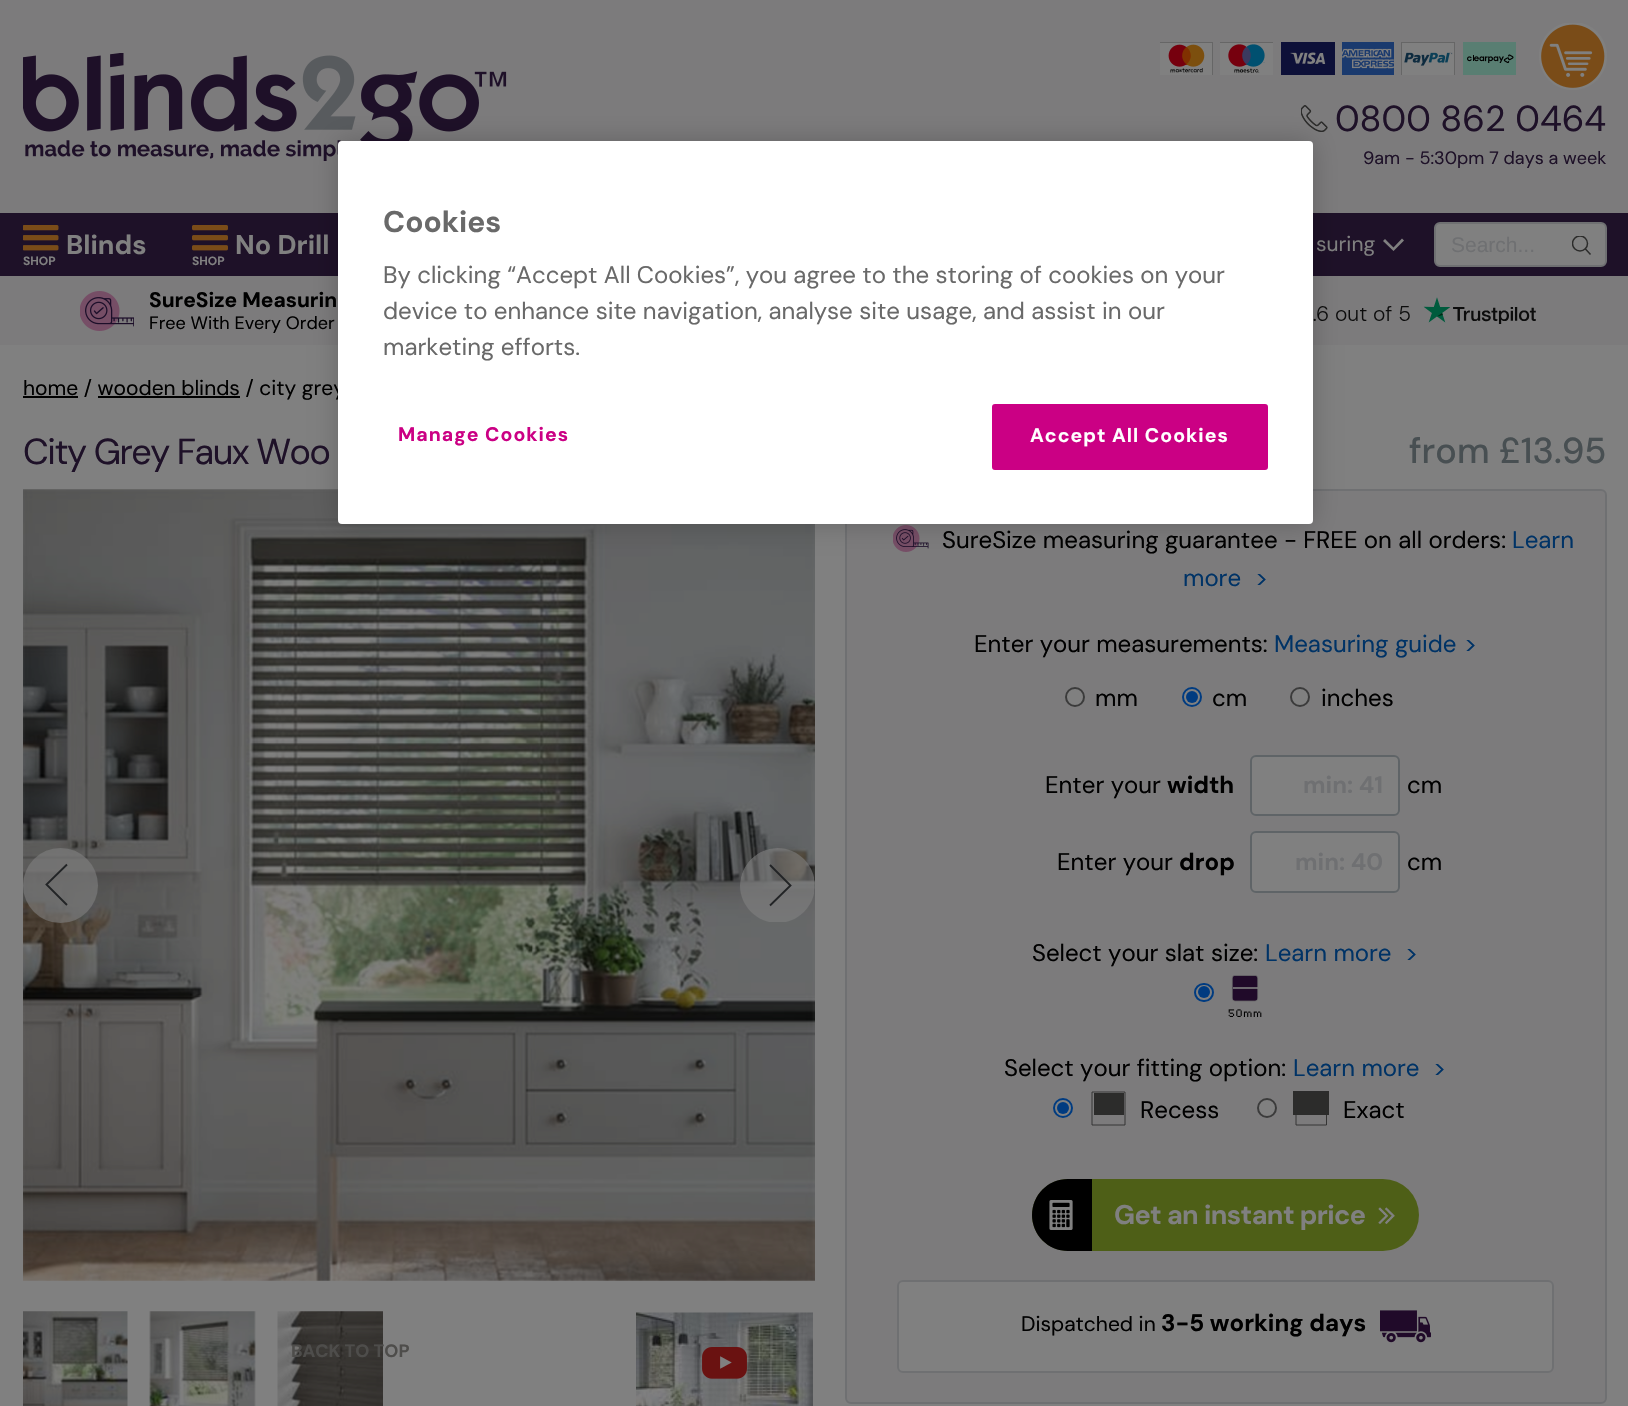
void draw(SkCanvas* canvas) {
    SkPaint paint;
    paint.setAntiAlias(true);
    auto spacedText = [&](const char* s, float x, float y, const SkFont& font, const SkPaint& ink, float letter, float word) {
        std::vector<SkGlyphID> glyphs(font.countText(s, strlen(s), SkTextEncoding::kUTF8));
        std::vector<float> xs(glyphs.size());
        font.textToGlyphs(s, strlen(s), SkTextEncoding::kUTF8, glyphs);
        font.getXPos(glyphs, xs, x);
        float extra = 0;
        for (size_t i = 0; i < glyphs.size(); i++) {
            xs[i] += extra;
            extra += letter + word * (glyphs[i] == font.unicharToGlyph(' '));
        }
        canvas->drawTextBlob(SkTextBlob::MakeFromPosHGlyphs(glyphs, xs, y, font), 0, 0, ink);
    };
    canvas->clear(0xFF808080);
    paint.setColor(0xFF7C7B7C);
    canvas->drawRect(SkRect::MakeXYWH(0, 0, 1628, 213), paint);
    canvas->drawImageRect(SkImages::DeferredFromEncodedData(SkData::MakeFromFileName("img1.png")), SkRect::MakeXYWH(23, 53, 484, 108), SkSamplingOptions());
    canvas->drawImageRect(SkImages::DeferredFromEncodedData(SkData::MakeFromFileName("img2.png")), SkRect::MakeXYWH(1160, 42, 356, 33), SkSamplingOptions());
    canvas->drawImageRect(SkImages::DeferredFromEncodedData(SkData::MakeFromFileName("img3.png")), SkRect::MakeXYWH(1539, 23, 68, 67), SkSamplingOptions());
    canvas->drawImageRect(SkImages::DeferredFromEncodedData(SkData::MakeFromFileName("img4.png")), SkRect::MakeXYWH(1301, 105, 27, 27), SkSamplingOptions());
    SkFont font1(fontMgr->matchFamilyStyle("DM Sans", SkFontStyle::Normal()), 36);
    font1.setSubpixel(true);
    paint.setColor(0xFF1E1128);
    canvas->drawString("0800 862 0464", 1335, 131, font1, paint);
    SkFont font2(fontMgr->matchFamilyStyle("DM Sans", SkFontStyle::Normal()), 18);
    font2.setSubpixel(true);
    canvas->drawString("9am - 5:30pm 7 days a week", 1363, 164, font2, paint);
    canvas->drawRect(SkRect::MakeXYWH(0, 213, 1628, 63), paint);
    SkFont font3(fontMgr->matchFamilyStyle("DM Sans", SkFontStyle::Bold()), 27);
    font3.setSubpixel(true);
    paint.setColor(0xFF808080);
    canvas->drawString("Blinds", 66, 254, font3, paint);
    canvas->drawImageRect(SkImages::DeferredFromEncodedData(SkData::MakeFromFileName("img5.png")), SkRect::MakeXYWH(23, 225, 36, 26), SkSamplingOptions());
    SkFont font4(fontMgr->matchFamilyStyle("DM Sans", SkFontStyle::Bold()), 12);
    font4.setSubpixel(true);
    canvas->drawString("SHOP", 23, 265, font4, paint);
    canvas->drawString("No Drill", 235, 254, font3, paint);
    canvas->drawImageRect(SkImages::DeferredFromEncodedData(SkData::MakeFromFileName("img6.png")), SkRect::MakeXYWH(192, 225, 36, 26), SkSamplingOptions());
    canvas->drawString("SHOP", 192, 265, font4, paint);
    SkFont font5(fontMgr->matchFamilyStyle("DM Sans", SkFontStyle::Normal()), 21);
    font5.setSubpixel(true);
    canvas->drawString("suring", 1316, 251, font5, paint);
    canvas->drawPath(SkPathBuilder().moveTo(1393.5f, 251).lineTo(1383, 241).lineTo(1385, 239).lineTo(1393.5f, 247.5f).lineTo(1402, 238.5f).lineTo(1404, 240.5f).close().detach(), paint);
    canvas->drawRoundRect(SkRect::MakeXYWH(1435, 223, 171, 43), 5, 5, paint);
    paint.setStyle(SkPaint::kStroke_Style);
    paint.setStrokeWidth(2);
    paint.setColor(0xFF6F7072);
    canvas->drawRoundRect(SkRect::MakeXYWH(1435, 223, 171, 43), 5, 5, paint);
    SkFont font6(fontMgr->matchFamilyStyle("Liberation Sans", SkFontStyle::Normal()), 21);
    font6.setSubpixel(true);
    paint.setStyle(SkPaint::kFill_Style);
    canvas->drawString("Search...", 1451, 252, font6, paint);
    canvas->save();
    canvas->clipRect(SkRect::MakeXYWH(1572, 236, 20, 19));
    paint.setStyle(SkPaint::kStroke_Style);
    paint.setStrokeWidth(1.5f);
    paint.setColor(0xFF2C2C2B);
    canvas->drawCircle(1580, 243.5f, 7.5f, paint);
    canvas->restore();
    canvas->drawPath(SkPathBuilder().moveTo(1590.5f, 254.5f).lineTo(1585, 248.5f).close().detach(), paint);
    paint.setStyle(SkPaint::kFill_Style);
    paint.setColor(0xFF7C7B7C);
    canvas->drawRect(SkRect::MakeXYWH(0, 276, 1628, 69), paint);
    canvas->drawImageRect(SkImages::DeferredFromEncodedData(SkData::MakeFromFileName("img7.png")), SkRect::MakeXYWH(80, 291, 54, 40), SkSamplingOptions());
    SkFont font7(fontMgr->matchFamilyStyle("DM Sans", SkFontStyle::Bold()), 21);
    font7.setSubpixel(true);
    paint.setColor(0xFF000000);
    canvas->drawString("SureSize Measurin", 149, 307, font7, paint);
    canvas->drawString("Free With Every Order", 149, 329, font2, paint);
    canvas->drawImageRect(SkImages::DeferredFromEncodedData(SkData::MakeFromFileName("img8.png")), SkRect::MakeXYWH(1313, 297, 223, 27), SkSamplingOptions());
    canvas->drawImageRect(SkImages::DeferredFromEncodedData(SkData::MakeFromFileName("img9.png")), SkRect::MakeXYWH(23, 489, 792, 792), SkSamplingOptions());
    paint.setColor(0xFF7C7B7C);
    canvas->drawRoundRect(SkRect::MakeXYWH(846, 490, 760, 913), 5, 5, paint);
    paint.setStyle(SkPaint::kStroke_Style);
    paint.setStrokeWidth(2);
    paint.setColor(0xFF6F7072);
    canvas->drawRoundRect(SkRect::MakeXYWH(846, 490, 760, 913), 5, 5, paint);
    canvas->drawImageRect(SkImages::DeferredFromEncodedData(SkData::MakeFromFileName("img15.png")), SkRect::MakeXYWH(893, 525, 36, 27), SkSamplingOptions());
    paint.setStyle(SkPaint::kFill_Style);
    paint.setColor(0x33000000);
    paint.setMaskFilter(SkMaskFilter::MakeBlur(kNormal_SkBlurStyle, 13.5f));
    canvas->drawRoundRect(SkRect::MakeXYWH(338, 141, 975, 383), 4, 4, paint);
    paint.setMaskFilter(nullptr);
    paint.setColor(0xFF000000);
    canvas->drawRect(SkRect::MakeXYWH(23, 396, 55, 2), paint);
    canvas->drawString("home / wooden blinds / city grey", 23, 395, font5, paint);
    paint.setColor(0xFFFFFFFF);
    canvas->drawRoundRect(SkRect::MakeXYWH(338, 141, 975, 383), 4, 4, paint);
    SkFont font8(fontMgr->matchFamilyStyle("DM Sans", SkFontStyle::Bold()), 30);
    font8.setSubpixel(true);
    paint.setColor(0xFF696969);
    canvas->drawString("Cookies", 383, 232, font8, paint);
    SkFont font9(fontMgr->matchFamilyStyle("DM Sans", SkFontStyle::Normal()), 24);
    font9.setSubpixel(true);
    canvas->drawString("By clicking “Accept All Cookies”, you agree to the storing of cookies on your", 383, 283, font9, paint);
    canvas->drawString("device to enhance site navigation, analyse site usage, and assist in our", 383, 319, font9, paint);
    canvas->drawString("marketing efforts.", 383, 355, font9, paint);
    SkFont font10(fontMgr->matchFamilyStyle("DM Sans", SkFontStyle::Bold()), 19.5f);
    font10.setSubpixel(true);
    paint.setColor(0xFFCB0084);
    spacedText("Manage Cookies", 398, 441, font10, paint, 1, 0);
    canvas->drawRoundRect(SkRect::MakeXYWH(993, 405, 274, 64), 2, 2, paint);
    paint.setStyle(SkPaint::kStroke_Style);
    canvas->drawRoundRect(SkRect::MakeXYWH(993, 405, 274, 64), 2, 2, paint);
    paint.setStyle(SkPaint::kFill_Style);
    paint.setColor(0xFFFFFFFF);
    spacedText("Accept All Cookies", 1030, 442, font10, paint, 1, 0);
    paint.setColor(0xFF000000);
    canvas->drawRect(SkRect::MakeXYWH(98, 396, 142, 2), paint);
    paint.setColor(0xFF1E1128);
    spacedText("City Grey Faux Woo", 23, 464, font1, paint, -1.5f, 0);
    SkFont font11(fontMgr->matchFamilyStyle("DM Sans", SkFontStyle(500, SkFontStyle::kNormal_Width, SkFontStyle::kUpright_Slant)), 36);
    font11.setSubpixel(true);
    paint.setColor(0xFF484F52);
    canvas->drawString("from £13.95", 1409, 463, font11, paint);
    paint.setColor(0x99808080);
    canvas->drawCircle(60.5f, 885.5f, 37.5f, paint);
    paint.setStyle(SkPaint::kStroke_Style);
    paint.setStrokeWidth(1.9f);
    paint.setColor(0xFF222426);
    canvas->drawPath(SkPathBuilder().moveTo(67, 905).lineTo(46.5f, 884.5f).lineTo(67, 864.5f).detach(), paint);
    canvas->save();
    canvas->clipPath(SkPathBuilder().moveTo(777.5f, 848).cubicTo(798, 848, 815, 865, 815, 885.5f).cubicTo(815, 906, 798, 923, 777.5f, 923).cubicTo(757, 923, 740, 906, 740, 885.5f).cubicTo(740, 865, 757, 848, 777.5f, 848).close().detach(), true);
    paint.setStyle(SkPaint::kFill_Style);
    paint.setColor(0x99808080);
    canvas->drawPath(SkPathBuilder().moveTo(777.5f, 848).lineTo(814, 848).lineTo(814, 922).lineTo(740, 922).lineTo(740, 885.5f).cubicTo(740, 865, 757, 848, 777.5f, 848).close().detach(), paint);
    canvas->restore();
    paint.setStyle(SkPaint::kStroke_Style);
    paint.setColor(0xFF222426);
    canvas->drawPath(SkPathBuilder().moveTo(770, 865).lineTo(790.5f, 885.5f).lineTo(770, 905.5f).detach(), paint);
    canvas->drawImageRect(SkImages::DeferredFromEncodedData(SkData::MakeFromFileName("img10.png")), SkRect::MakeXYWH(23, 1311, 105, 95), SkSamplingOptions());
    canvas->drawImageRect(SkImages::DeferredFromEncodedData(SkData::MakeFromFileName("img11.png")), SkRect::MakeXYWH(149, 1311, 107, 95), SkSamplingOptions());
    canvas->drawImageRect(SkImages::DeferredFromEncodedData(SkData::MakeFromFileName("img12.png")), SkRect::MakeXYWH(277, 1311, 106, 95), SkSamplingOptions());
    canvas->drawImageRect(SkImages::DeferredFromEncodedData(SkData::MakeFromFileName("img13.png")), SkRect::MakeXYWH(636, 1312, 177, 94), SkSamplingOptions());
    canvas->drawImageRect(SkImages::DeferredFromEncodedData(SkData::MakeFromFileName("img14.png")), SkRect::MakeXYWH(702, 1347, 45, 32), SkSamplingOptions());
    paint.setStyle(SkPaint::kFill_Style);
    paint.setColor(0xFF000000);
    canvas->drawString("SureSize measuring guarantee - FREE on all orders:", 942, 548, font9, paint);
    paint.setColor(0xFF003366);
    canvas->drawString("Learn", 1512, 548, font9, paint);
    canvas->drawString("more", 1183, 586, font9, paint);
    canvas->drawString(">", 1255, 586, font9, paint);
    paint.setColor(0xFF000000);
    canvas->drawString("Enter your measurements:", 974, 652, font9, paint);
    paint.setColor(0xFF003366);
    canvas->drawString("Measuring guide", 1274, 652, font9, paint);
    canvas->drawString(">", 1464, 652, font9, paint);
    paint.setColor(0xFF808080);
    canvas->drawCircle(1075, 697, 9, paint);
    paint.setStyle(SkPaint::kStroke_Style);
    paint.setStrokeWidth(2);
    paint.setColor(0xFF3B3B3B);
    canvas->drawCircle(1075, 697, 9, paint);
    paint.setStyle(SkPaint::kFill_Style);
    paint.setColor(0xFF000000);
    canvas->drawString("mm", 1095, 706, font9, paint);
    paint.setColor(0xFF808080);
    canvas->drawCircle(1192, 697, 9, paint);
    paint.setStyle(SkPaint::kStroke_Style);
    paint.setColor(0xFF003B80);
    canvas->drawCircle(1192, 697, 9, paint);
    paint.setStyle(SkPaint::kFill_Style);
    canvas->drawCircle(1192, 697, 6, paint);
    paint.setColor(0xFF000000);
    canvas->drawString("cm", 1212, 706, font9, paint);
    paint.setColor(0xFF808080);
    canvas->drawCircle(1300, 697, 9, paint);
    paint.setStyle(SkPaint::kStroke_Style);
    paint.setColor(0xFF3B3B3B);
    canvas->drawCircle(1300, 697, 9, paint);
    paint.setStyle(SkPaint::kFill_Style);
    paint.setColor(0xFF000000);
    canvas->drawString("inches", 1321, 706, font9, paint);
    canvas->drawString("Enter your", 1045, 793, font9, paint);
    SkFont font12(fontMgr->matchFamilyStyle("DM Sans", SkFontStyle::Bold()), 24);
    font12.setSubpixel(true);
    canvas->drawString("width", 1167, 793, font12, paint);
    paint.setColor(0xFF808080);
    canvas->drawRoundRect(SkRect::MakeXYWH(1251, 756, 148, 59), 5, 5, paint);
    paint.setStyle(SkPaint::kStroke_Style);
    paint.setColor(0xFF5F6467);
    canvas->drawRoundRect(SkRect::MakeXYWH(1251, 756, 148, 59), 5, 5, paint);
    paint.setStyle(SkPaint::kFill_Style);
    paint.setColor(0xFF6F7072);
    canvas->drawString("min: 41", 1303, 793, font12, paint);
    paint.setColor(0xFF000000);
    canvas->drawString("cm", 1407, 793, font9, paint);
    canvas->drawString("Enter your", 1057, 870, font9, paint);
    canvas->drawString("drop", 1179, 870, font12, paint);
    paint.setColor(0xFF808080);
    canvas->drawRoundRect(SkRect::MakeXYWH(1251, 832, 148, 60), 5, 5, paint);
    paint.setStyle(SkPaint::kStroke_Style);
    paint.setColor(0xFF5F6467);
    canvas->drawRoundRect(SkRect::MakeXYWH(1251, 832, 148, 60), 5, 5, paint);
    paint.setStyle(SkPaint::kFill_Style);
    paint.setColor(0xFF6F7072);
    canvas->drawString("min: 40", 1295, 870, font12, paint);
    paint.setColor(0xFF000000);
    canvas->drawString("cm", 1407, 870, font9, paint);
    canvas->drawString("Select your slat size:", 1032, 961, font9, paint);
    paint.setColor(0xFF003366);
    canvas->drawString("Learn more", 1265, 961, font9, paint);
    canvas->drawString(">", 1405, 961, font9, paint);
    paint.setColor(0xFF808080);
    canvas->drawRoundRect(SkRect::MakeXYWH(1195, 984, 18, 17), 8.5f, 8.5f, paint);
    paint.setStyle(SkPaint::kStroke_Style);
    paint.setColor(0xFF003B80);
    canvas->drawRoundRect(SkRect::MakeXYWH(1195, 984, 18, 17), 8.5f, 8.5f, paint);
    paint.setStyle(SkPaint::kFill_Style);
    canvas->drawCircle(1204, 992, 6, paint);
    canvas->drawImageRect(SkImages::DeferredFromEncodedData(SkData::MakeFromFileName("img16.png")), SkRect::MakeXYWH(1228, 975, 34, 42), SkSamplingOptions());
    paint.setColor(0xFF000000);
    canvas->drawString("Select your fitting option:", 1004, 1076, font9, paint);
    paint.setColor(0xFF003366);
    canvas->drawString("Learn more", 1293, 1076, font9, paint);
    canvas->drawString(">", 1433, 1076, font9, paint);
    paint.setStyle(SkPaint::kStroke_Style);
    paint.setStrokeWidth(0.9f);
    paint.setColor(0xFF2C2C2B);
    canvas->drawPath(SkPathBuilder().moveTo(1092, 1092).lineTo(1125, 1092).lineTo(1125, 1125).lineTo(1092, 1125).close().detach(), paint);
    paint.setStyle(SkPaint::kFill_Style);
    paint.setColor(0xFF808080);
    canvas->drawCircle(1063, 1108, 9, paint);
    paint.setStyle(SkPaint::kStroke_Style);
    paint.setStrokeWidth(2);
    paint.setColor(0xFF003B80);
    canvas->drawCircle(1063, 1108, 9, paint);
    paint.setStyle(SkPaint::kFill_Style);
    canvas->drawCircle(1063, 1108, 6, paint);
    paint.setColor(0xFF2C2C2B);
    canvas->drawRect(SkRect::MakeXYWH(1094, 1093, 30, 22), paint);
    paint.setColor(0xFF000000);
    canvas->drawString("Recess", 1140, 1118, font9, paint);
    paint.setColor(0xFF2C2C2B);
    canvas->drawRect(SkRect::MakeXYWH(1293, 1091, 36, 24), paint);
    paint.setColor(0xFF808080);
    canvas->drawCircle(1267, 1108, 9, paint);
    paint.setStyle(SkPaint::kStroke_Style);
    paint.setColor(0xFF3B3B3B);
    canvas->drawCircle(1267, 1108, 9, paint);
    paint.setStrokeWidth(0.9f);
    paint.setColor(0xFF2C2C2B);
    canvas->drawPath(SkPathBuilder().moveTo(1296, 1092).lineTo(1326.5f, 1092).lineTo(1326.5f, 1125).lineTo(1296, 1125).close().detach(), paint);
    paint.setStyle(SkPaint::kFill_Style);
    paint.setColor(0xFF000000);
    canvas->drawString("Exact", 1343, 1118, font9, paint);
    paint.setColor(0xFF4E5F17);
    canvas->drawRoundRect(SkRect::MakeXYWH(1032, 1179, 387, 72), 36, 36, paint);
    paint.setColor(0xFF000000);
    canvas->drawPath(SkPathBuilder().moveTo(1068, 1179).lineTo(1092, 1179).lineTo(1092, 1251).lineTo(1068, 1251).cubicTo(1048, 1251, 1032, 1235, 1032, 1215).cubicTo(1032, 1195, 1048, 1179, 1068, 1179).close().detach(), paint);
    canvas->drawImageRect(SkImages::DeferredFromEncodedData(SkData::MakeFromFileName("img17.png")), SkRect::MakeXYWH(1049, 1200, 24, 30), SkSamplingOptions());
    paint.setColor(0xFF808080);
    spacedText("Get an instant price", 1114, 1224, font3, paint, -0.6f, 0);
    canvas->drawImageRect(SkImages::DeferredFromEncodedData(SkData::MakeFromFileName("img18.png")), SkRect::MakeXYWH(1378, 1207, 17, 17), SkSamplingOptions());
    canvas->drawRoundRect(SkRect::MakeXYWH(898, 1281, 655, 91), 5, 5, paint);
    paint.setStyle(SkPaint::kStroke_Style);
    paint.setStrokeWidth(2);
    paint.setColor(0xFF6F7072);
    canvas->drawRoundRect(SkRect::MakeXYWH(898, 1281, 655, 91), 5, 5, paint);
    paint.setStyle(SkPaint::kFill_Style);
    paint.setColor(0xFF000000);
    canvas->drawString("Dispatched in", 1021, 1331, font5, paint);
    canvas->drawString("3-5 working days", 1161, 1331, font12, paint);
    canvas->drawImageRect(SkImages::DeferredFromEncodedData(SkData::MakeFromFileName("img19.png")), SkRect::MakeXYWH(1380, 1310, 51, 33), SkSamplingOptions());
    SkFont font13(fontMgr->matchFamilyStyle("DM Sans", SkFontStyle::Bold()), 18);
    font13.setSubpixel(true);
    paint.setColor(0xFF4E4D4B);
    canvas->drawString("BACK TO TOP", 291, 1357, font13, paint);
}
